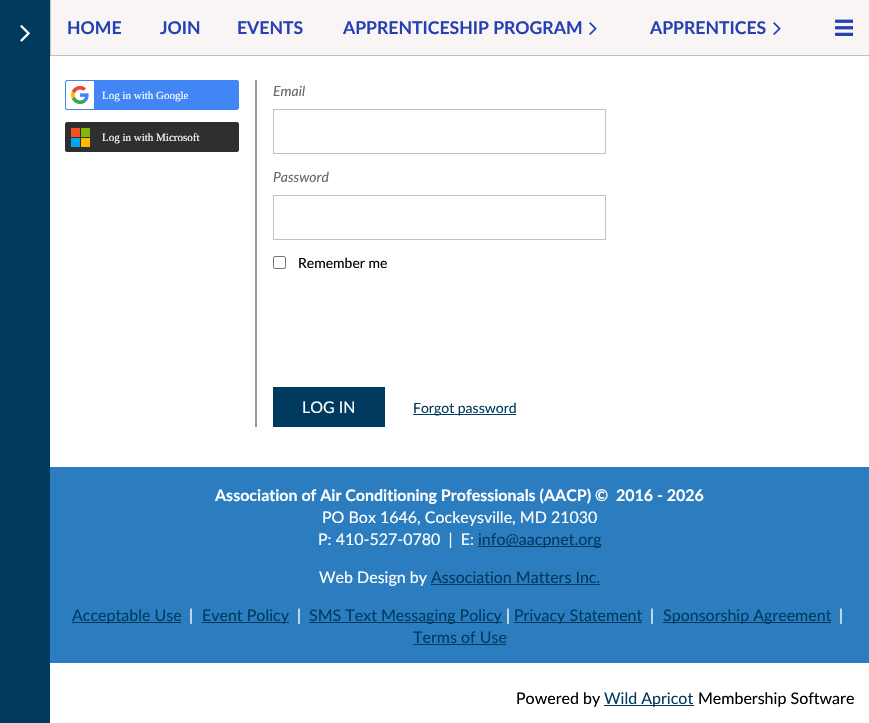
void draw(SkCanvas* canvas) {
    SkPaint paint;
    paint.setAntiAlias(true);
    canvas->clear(0xFFFFFFFF);
    paint.setColor(0xFF003B5F);
    canvas->drawRect(SkRect::MakeXYWH(0, 0, 50, 723), paint);
    canvas->drawImageRect(SkImages::DeferredFromEncodedData(SkData::MakeFromFileName("img1.png")), SkRect::MakeXYWH(20, 25, 10, 17), SkSamplingOptions());
    paint.setColor(0xFFF9F5F5);
    canvas->drawRect(SkRect::MakeXYWH(51, 0, 818, 55), paint);
    paint.setColor(0xFFC1C1C1);
    canvas->drawRect(SkRect::MakeXYWH(50, 55, 819, 1), paint);
    canvas->drawRect(SkRect::MakeXYWH(50, 0, 1, 56), paint);
    SkFont font1(fontMgr->matchFamilyStyle("Lato", SkFontStyle::Bold()), 17.6f);
    font1.setSubpixel(true);
    paint.setColor(0xFF2740B2);
    canvas->drawString("HOME", 67, 34, font1, paint);
    canvas->drawString("JOIN", 160, 34, font1, paint);
    canvas->drawString("EVENTS", 237, 34, font1, paint);
    canvas->drawString("APPRENTICESHIP PROGRAM", 343, 34, font1, paint);
    canvas->drawImageRect(SkImages::DeferredFromEncodedData(SkData::MakeFromFileName("img2.png")), SkRect::MakeXYWH(589, 22, 8, 13), SkSamplingOptions());
    canvas->drawString("APPRENTICES", 650, 34, font1, paint);
    canvas->drawImageRect(SkImages::DeferredFromEncodedData(SkData::MakeFromFileName("img2.png")), SkRect::MakeXYWH(773, 22, 8, 13), SkSamplingOptions());
    canvas->drawImageRect(SkImages::DeferredFromEncodedData(SkData::MakeFromFileName("img3.png")), SkRect::MakeXYWH(835, 19, 18, 17), SkSamplingOptions());
    paint.setColor(0xFF4285F4);
    canvas->drawRoundRect(SkRect::MakeXYWH(65.5f, 80.5f, 173, 29), 1.5f, 1.5f, paint);
    paint.setStyle(SkPaint::kStroke_Style);
    paint.setStrokeWidth(1);
    canvas->drawRoundRect(SkRect::MakeXYWH(65.5f, 80.5f, 173, 29), 1.5f, 1.5f, paint);
    canvas->drawImageRect(SkImages::DeferredFromEncodedData(SkData::MakeFromFileName("img4.png")), SkRect::MakeXYWH(66, 81, 28, 28), SkSamplingOptions());
    SkFont font2(fontMgr->matchFamilyStyle("Liberation Serif", SkFontStyle::Normal()), 11);
    font2.setSubpixel(true);
    paint.setStyle(SkPaint::kFill_Style);
    paint.setColor(0xFFFFFFFF);
    canvas->drawString("Log in with Google", 102, 99, font2, paint);
    paint.setColor(0xFF2F2F2F);
    canvas->drawRoundRect(SkRect::MakeXYWH(65.5f, 122.5f, 173, 29), 1.5f, 1.5f, paint);
    paint.setStyle(SkPaint::kStroke_Style);
    canvas->drawRoundRect(SkRect::MakeXYWH(65.5f, 122.5f, 173, 29), 1.5f, 1.5f, paint);
    paint.setStyle(SkPaint::kFill_Style);
    paint.setColor(0xFFF25022);
    canvas->drawRect(SkRect::MakeXYWH(71, 128, 9, 9), paint);
    paint.setColor(0xFF00A4EF);
    canvas->drawRect(SkRect::MakeXYWH(71, 138, 9, 9), paint);
    paint.setColor(0xFF7FBA00);
    canvas->drawRect(SkRect::MakeXYWH(81, 128, 9, 9), paint);
    paint.setColor(0xFFFFB900);
    canvas->drawRect(SkRect::MakeXYWH(81, 138, 9, 9), paint);
    paint.setColor(0xFFFFFFFF);
    canvas->drawString("Log in with Microsoft", 102, 141, font2, paint);
    paint.setColor(0xFF979797);
    canvas->drawRect(SkRect::MakeXYWH(255, 80, 2, 347), paint);
    SkFont font3(fontMgr->matchFamilyStyle("Lato", SkFontStyle::Italic()), 14);
    font3.setSubpixel(true);
    paint.setColor(0xFF676767);
    canvas->drawString("Email", 273, 96, font3, paint);
    paint.setStyle(SkPaint::kStroke_Style);
    paint.setColor(0xFFC1C1C1);
    canvas->drawRect(SkRect::MakeXYWH(273.5f, 109.5f, 332, 44), paint);
    paint.setStyle(SkPaint::kFill_Style);
    paint.setColor(0xFF676767);
    canvas->drawString("Password", 273, 182, font3, paint);
    paint.setStyle(SkPaint::kStroke_Style);
    paint.setColor(0xFFC1C1C1);
    canvas->drawRect(SkRect::MakeXYWH(273.5f, 195.5f, 332, 44), paint);
    paint.setColor(0xFF767676);
    canvas->drawRoundRect(SkRect::MakeXYWH(273.5f, 256.5f, 12, 12), 1.5f, 1.5f, paint);
    SkFont font4(fontMgr->matchFamilyStyle("Lato", SkFontStyle::Normal()), 14);
    font4.setSubpixel(true);
    paint.setStyle(SkPaint::kFill_Style);
    paint.setColor(0xFF000000);
    canvas->drawString("Remember me", 298, 268, font4, paint);
    paint.setColor(0xFF003B5F);
    canvas->drawRect(SkRect::MakeXYWH(273, 387, 112, 40), paint);
    SkFont font5(fontMgr->matchFamilyStyle("Lato", SkFontStyle::Normal()), 16);
    font5.setSubpixel(true);
    paint.setColor(0xFFFFFFFF);
    canvas->drawString("LOG IN", 302, 413, font5, paint);
    paint.setColor(0xFF003B5F);
    canvas->drawRect(SkRect::MakeXYWH(413, 414, 103, 1), paint);
    canvas->drawString("Forgot password", 413, 413, font4, paint);
    paint.setColor(0xFF2B7DBF);
    canvas->drawRect(SkRect::MakeXYWH(50, 467, 819, 196), paint);
    SkFont font6(fontMgr->matchFamilyStyle("Lato", SkFontStyle::Bold()), 16);
    font6.setSubpixel(true);
    paint.setColor(0xFFFFFFFF);
    canvas->drawString("Association of Air Conditioning Professionals (AACP) ©  2016 - 2026", 215, 501, font6, paint);
    canvas->drawString("PO Box 1646, Cockeysville, MD 21030", 322, 523, font5, paint);
    canvas->drawString("P: 410-527-0780  |  E:", 318, 545, font5, paint);
    paint.setColor(0xFF003B5F);
    canvas->drawRect(SkRect::MakeXYWH(478, 546, 123, 1), paint);
    canvas->drawString("info@aacpnet.org", 478, 545, font5, paint);
    paint.setColor(0xFFFFFFFF);
    canvas->drawString("Web Design by", 319, 583, font5, paint);
    paint.setColor(0xFF003B5F);
    canvas->drawString("Association Matters Inc.", 431, 583, font5, paint);
    canvas->drawRect(SkRect::MakeXYWH(431, 584, 169, 1), paint);
    canvas->drawRect(SkRect::MakeXYWH(72, 622, 109, 1), paint);
    canvas->drawString("Acceptable Use", 72, 621, font5, paint);
    paint.setColor(0xFFFFFFFF);
    canvas->drawString("|", 189, 621, font5, paint);
    paint.setColor(0xFF003B5F);
    canvas->drawRect(SkRect::MakeXYWH(202, 622, 87, 1), paint);
    canvas->drawString("Event Policy", 202, 621, font5, paint);
    paint.setColor(0xFFFFFFFF);
    canvas->drawString("|", 297, 621, font5, paint);
    paint.setColor(0xFF003B5F);
    canvas->drawRect(SkRect::MakeXYWH(309, 622, 193, 1), paint);
    canvas->drawString("SMS Text Messaging Policy", 309, 621, font5, paint);
    paint.setColor(0xFFFFFFFF);
    canvas->drawString("|", 506, 621, font5, paint);
    paint.setColor(0xFF003B5F);
    canvas->drawRect(SkRect::MakeXYWH(514, 622, 128, 1), paint);
    canvas->drawString("Privacy Statement", 514, 621, font5, paint);
    paint.setColor(0xFFFFFFFF);
    canvas->drawString("|", 650, 621, font5, paint);
    paint.setColor(0xFF003B5F);
    canvas->drawRect(SkRect::MakeXYWH(663, 622, 168, 1), paint);
    canvas->drawString("Sponsorship Agreement", 663, 621, font5, paint);
    paint.setColor(0xFFFFFFFF);
    canvas->drawString("|", 839, 621, font5, paint);
    paint.setColor(0xFF003B5F);
    canvas->drawString("Terms of Use", 413, 643, font5, paint);
    canvas->drawRect(SkRect::MakeXYWH(413, 644, 93, 1), paint);
    paint.setColor(0xFF000000);
    canvas->drawString("Powered by", 516, 704, font5, paint);
    paint.setColor(0xFF003B5F);
    canvas->drawRect(SkRect::MakeXYWH(604, 705, 90, 1), paint);
    canvas->drawString("Wild Apricot", 604, 704, font5, paint);
    paint.setColor(0xFF000000);
    canvas->drawString("Membership Software", 698, 704, font5, paint);
}
